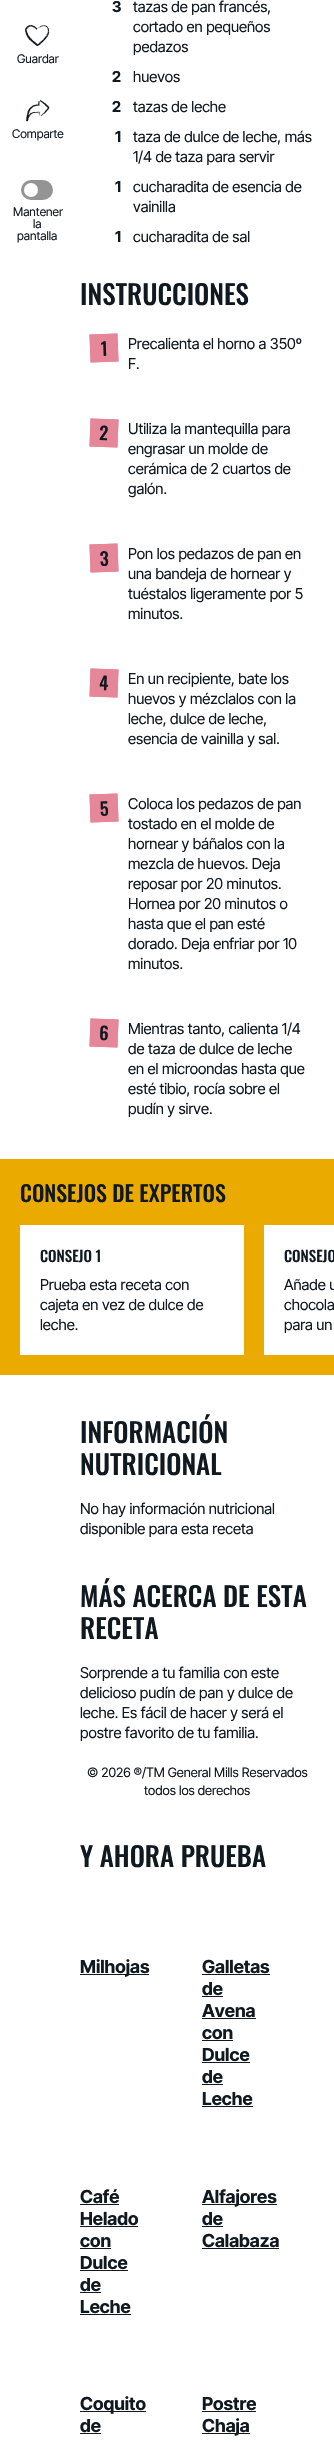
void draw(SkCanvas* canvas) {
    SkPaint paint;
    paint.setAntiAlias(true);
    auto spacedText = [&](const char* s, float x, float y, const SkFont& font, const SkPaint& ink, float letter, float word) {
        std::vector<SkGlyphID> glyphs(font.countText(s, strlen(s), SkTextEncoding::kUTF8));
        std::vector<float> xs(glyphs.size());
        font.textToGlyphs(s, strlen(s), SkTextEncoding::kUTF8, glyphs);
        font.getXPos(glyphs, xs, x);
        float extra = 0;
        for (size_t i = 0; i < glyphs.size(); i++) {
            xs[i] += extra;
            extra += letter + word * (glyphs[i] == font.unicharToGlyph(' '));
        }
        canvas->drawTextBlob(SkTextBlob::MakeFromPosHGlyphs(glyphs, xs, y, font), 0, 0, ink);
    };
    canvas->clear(0xFFFFFFFF);
    canvas->drawImageRect(SkImages::DeferredFromEncodedData(SkData::MakeFromFileName("img1.png")), SkRect::MakeXYWH(25, 24, 25, 23), SkSamplingOptions());
    SkFont font1(fontMgr->matchFamilyStyle("Inter Tight", SkFontStyle::Normal()), 12);
    font1.setSubpixel(true);
    paint.setColor(0xFF101820);
    canvas->drawString("Guardar", 17, 63, font1, paint);
    canvas->drawImageRect(SkImages::DeferredFromEncodedData(SkData::MakeFromFileName("img2.png")), SkRect::MakeXYWH(26, 99, 24, 23), SkSamplingOptions());
    canvas->drawString("Comparte", 12, 138, font1, paint);
    paint.setColor(0xFF949494);
    canvas->drawRoundRect(SkRect::MakeXYWH(21, 180, 32, 20), 10, 10, paint);
    paint.setColor(0xFFFFFFFF);
    canvas->drawCircle(31, 190, 7, paint);
    paint.setColor(0xFF101820);
    canvas->drawString("Mantener", 13, 216, font1, paint);
    canvas->drawString("la", 33, 228, font1, paint);
    canvas->drawString("pantalla", 17, 240, font1, paint);
    SkFont font2(fontMgr->matchFamilyStyle("Inter Tight", SkFontStyle::Bold()), 15);
    font2.setSubpixel(true);
    spacedText("3", 112, 12, font2, paint, 2, 0);
    SkFont font3(fontMgr->matchFamilyStyle("Inter Tight", SkFontStyle::Normal()), 15);
    font3.setSubpixel(true);
    canvas->drawString("tazas de pan francés,", 133, 12, font3, paint);
    canvas->drawString("cortado en pequeños", 133, 32, font3, paint);
    canvas->drawString("pedazos", 133, 52, font3, paint);
    spacedText("2", 112, 82, font2, paint, 2, 0);
    canvas->drawString("huevos", 133, 82, font3, paint);
    spacedText("2", 112, 112, font2, paint, 2, 0);
    canvas->drawString("tazas de leche", 133, 112, font3, paint);
    spacedText("1", 115, 142, font2, paint, 2, 0);
    canvas->drawString("taza de dulce de leche, más", 133, 142, font3, paint);
    canvas->drawString("1/4 de taza para servir", 133, 162, font3, paint);
    spacedText("1", 115, 192, font2, paint, 2, 0);
    canvas->drawString("cucharadita de esencia de", 133, 192, font3, paint);
    canvas->drawString("vainilla", 133, 212, font3, paint);
    spacedText("1", 115, 242, font2, paint, 2, 0);
    canvas->drawString("cucharadita de sal", 133, 242, font3, paint);
    SkFont font4(fontMgr->matchFamilyStyle("Oswald", SkFontStyle(500, SkFontStyle::kNormal_Width, SkFontStyle::kUpright_Slant)), 27);
    font4.setSubpixel(true);
    canvas->drawString("INSTRUCCIONES", 80, 305, font4, paint);
    paint.setColor(0xFFE68699);
    canvas->drawPath(SkPathBuilder().moveTo(89.5f, 334.5f).lineTo(117.5f, 333.5f).lineTo(118.5f, 361.5f).lineTo(90.5f, 362.5f).close().detach(), paint);
    paint.setStyle(SkPaint::kStroke_Style);
    paint.setStrokeWidth(2);
    canvas->drawPath(SkPathBuilder().moveTo(90.5f, 335.5f).lineTo(116.5f, 334.5f).lineTo(117.5f, 360.5f).lineTo(91.5f, 361.5f).close().detach(), paint);
    SkFont font5(fontMgr->matchFamilyStyle("Oswald", SkFontStyle(500, SkFontStyle::kNormal_Width, SkFontStyle::kUpright_Slant)), 18);
    font5.setSubpixel(true);
    paint.setStyle(SkPaint::kFill_Style);
    paint.setColor(0xFF101820);
    canvas->save();
    canvas->rotate(-2, 101, 356);
    canvas->drawString("1", 101, 356, font5, paint);
    canvas->restore();
    canvas->drawString("Precalienta el horno a 350º", 128, 349, font3, paint);
    canvas->drawString("F.", 128, 369, font3, paint);
    paint.setColor(0xFFE68699);
    canvas->drawPath(SkPathBuilder().moveTo(90.5f, 418.5f).lineTo(118.5f, 419.5f).lineTo(117.5f, 447.5f).lineTo(89.5f, 446.5f).close().detach(), paint);
    paint.setStyle(SkPaint::kStroke_Style);
    canvas->drawPath(SkPathBuilder().moveTo(91.5f, 419.5f).lineTo(117.5f, 420.5f).lineTo(116.5f, 446.5f).lineTo(90.5f, 445.5f).close().detach(), paint);
    paint.setStyle(SkPaint::kFill_Style);
    paint.setColor(0xFF101820);
    canvas->save();
    canvas->rotate(2, 99, 440);
    canvas->drawString("2", 99, 440, font5, paint);
    canvas->restore();
    canvas->drawString("Utiliza la mantequilla para", 128, 434, font3, paint);
    canvas->drawString("engrasar un molde de", 128, 454, font3, paint);
    canvas->drawString("cerámica de 2 cuartos de", 128, 474, font3, paint);
    canvas->drawString("galón.", 128, 494, font3, paint);
    paint.setColor(0xFFE68699);
    canvas->drawPath(SkPathBuilder().moveTo(89.5f, 544.5f).lineTo(117.5f, 543.5f).lineTo(118.5f, 571.5f).lineTo(90.5f, 572.5f).close().detach(), paint);
    paint.setStyle(SkPaint::kStroke_Style);
    canvas->drawPath(SkPathBuilder().moveTo(90.5f, 545.5f).lineTo(116.5f, 544.5f).lineTo(117.5f, 570.5f).lineTo(91.5f, 571.5f).close().detach(), paint);
    paint.setStyle(SkPaint::kFill_Style);
    paint.setColor(0xFF101820);
    canvas->save();
    canvas->rotate(-2, 100, 566);
    canvas->drawString("3", 100, 566, font5, paint);
    canvas->restore();
    canvas->drawString("Pon los pedazos de pan en", 128, 559, font3, paint);
    canvas->drawString("una bandeja de hornear y", 128, 579, font3, paint);
    canvas->drawString("tuéstalos ligeramente por 5", 128, 599, font3, paint);
    canvas->drawString("minutos.", 128, 619, font3, paint);
    paint.setColor(0xFFE68699);
    canvas->drawPath(SkPathBuilder().moveTo(90.5f, 668.5f).lineTo(118.5f, 669.5f).lineTo(117.5f, 697.5f).lineTo(89.5f, 696.5f).close().detach(), paint);
    paint.setStyle(SkPaint::kStroke_Style);
    canvas->drawPath(SkPathBuilder().moveTo(91.5f, 669.5f).lineTo(117.5f, 670.5f).lineTo(116.5f, 696.5f).lineTo(90.5f, 695.5f).close().detach(), paint);
    paint.setStyle(SkPaint::kFill_Style);
    paint.setColor(0xFF101820);
    canvas->save();
    canvas->rotate(2, 99, 690);
    canvas->drawString("4", 99, 690, font5, paint);
    canvas->restore();
    canvas->drawString("En un recipiente, bate los", 128, 684, font3, paint);
    canvas->drawString("huevos y mézclalos con la", 128, 704, font3, paint);
    canvas->drawString("leche, dulce de leche,", 128, 724, font3, paint);
    canvas->drawString("esencia de vainilla y sal.", 128, 744, font3, paint);
    paint.setColor(0xFFE68699);
    canvas->drawPath(SkPathBuilder().moveTo(89.5f, 794.5f).lineTo(117.5f, 793.5f).lineTo(118.5f, 821.5f).lineTo(90.5f, 822.5f).close().detach(), paint);
    paint.setStyle(SkPaint::kStroke_Style);
    canvas->drawPath(SkPathBuilder().moveTo(90.5f, 795.5f).lineTo(116.5f, 794.5f).lineTo(117.5f, 820.5f).lineTo(91.5f, 821.5f).close().detach(), paint);
    paint.setStyle(SkPaint::kFill_Style);
    paint.setColor(0xFF101820);
    canvas->save();
    canvas->rotate(-2, 100, 816);
    canvas->drawString("5", 100, 816, font5, paint);
    canvas->restore();
    canvas->drawString("Coloca los pedazos de pan", 128, 809, font3, paint);
    canvas->drawString("tostado en el molde de", 128, 829, font3, paint);
    canvas->drawString("hornear y báñalos con la", 128, 849, font3, paint);
    canvas->drawString("mezcla de huevos. Deja", 128, 869, font3, paint);
    canvas->drawString("reposar por 20 minutos.", 128, 889, font3, paint);
    canvas->drawString("Hornea por 20 minutos o", 128, 909, font3, paint);
    canvas->drawString("hasta que el pan esté", 128, 929, font3, paint);
    canvas->drawString("dorado. Deja enfriar por 10", 128, 949, font3, paint);
    canvas->drawString("minutos.", 128, 969, font3, paint);
    paint.setColor(0xFFE68699);
    canvas->drawPath(SkPathBuilder().moveTo(90.5f, 1018.5f).lineTo(118.5f, 1019.5f).lineTo(117.5f, 1047.5f).lineTo(89.5f, 1046.5f).close().detach(), paint);
    paint.setStyle(SkPaint::kStroke_Style);
    canvas->drawPath(SkPathBuilder().moveTo(91.5f, 1019.5f).lineTo(117.5f, 1020.5f).lineTo(116.5f, 1046.5f).lineTo(90.5f, 1045.5f).close().detach(), paint);
    paint.setStyle(SkPaint::kFill_Style);
    paint.setColor(0xFF101820);
    canvas->save();
    canvas->rotate(2, 99, 1040);
    canvas->drawString("6", 99, 1040, font5, paint);
    canvas->restore();
    canvas->drawString("Mientras tanto, calienta 1/4", 128, 1034, font3, paint);
    canvas->drawString("de taza de dulce de leche", 128, 1054, font3, paint);
    canvas->drawString("en el microondas hasta que", 128, 1074, font3, paint);
    canvas->drawString("esté tibio, rocía sobre el", 128, 1094, font3, paint);
    canvas->drawString("pudín y sirve.", 128, 1114, font3, paint);
    paint.setColor(0xFFEAAA00);
    canvas->drawRect(SkRect::MakeXYWH(0, 1159, 334, 216), paint);
    SkFont font6(fontMgr->matchFamilyStyle("Oswald", SkFontStyle(500, SkFontStyle::kNormal_Width, SkFontStyle::kUpright_Slant)), 22);
    font6.setSubpixel(true);
    paint.setColor(0xFF101820);
    canvas->drawString("CONSEJOS DE EXPERTOS", 20, 1202, font6, paint);
    paint.setColor(0xFFFFFFFF);
    canvas->drawRect(SkRect::MakeXYWH(20, 1225, 224, 130), paint);
    SkFont font7(fontMgr->matchFamilyStyle("Oswald", SkFontStyle(500, SkFontStyle::kNormal_Width, SkFontStyle::kUpright_Slant)), 15);
    font7.setSubpixel(true);
    paint.setColor(0xFF101820);
    canvas->drawString("CONSEJO 1", 40, 1262, font7, paint);
    canvas->drawString("Prueba esta receta con", 40, 1290, font3, paint);
    canvas->drawString("cajeta en vez de dulce de", 40, 1310, font3, paint);
    canvas->drawString("leche.", 40, 1330, font3, paint);
    paint.setColor(0xFFFFFFFF);
    canvas->drawRect(SkRect::MakeXYWH(264, 1225, 70, 130), paint);
    paint.setColor(0xFF101820);
    canvas->drawString("CONSEJO", 284, 1262, font7, paint);
    canvas->drawString("Añade u", 284, 1290, font3, paint);
    canvas->drawString("chocola", 284, 1310, font3, paint);
    canvas->drawString("para un", 284, 1330, font3, paint);
    canvas->drawString("INFORMACIÓN", 80, 1443, font4, paint);
    canvas->drawString("NUTRICIONAL", 80, 1475, font4, paint);
    canvas->drawString("No hay información nutricional", 80, 1514, font3, paint);
    canvas->drawString("disponible para esta receta", 80, 1534, font3, paint);
    canvas->drawString("MÁS ACERCA DE ESTA", 80, 1607, font4, paint);
    canvas->drawString("RECETA", 80, 1639, font4, paint);
    canvas->drawString("Sorprende a tu familia con este", 80, 1678, font3, paint);
    canvas->drawString("delicioso pudín de pan y dulce de", 80, 1698, font3, paint);
    canvas->drawString("leche. Es fácil de hacer y será el", 80, 1718, font3, paint);
    canvas->drawString("postre favorito de tu familia.", 80, 1738, font3, paint);
    SkFont font8(fontMgr->matchFamilyStyle("Inter Tight", SkFontStyle::Normal()), 13);
    font8.setSubpixel(true);
    canvas->drawString("© 2026 ®/TM General Mills Reservados", 87, 1777, font8, paint);
    canvas->drawString("todos los derechos", 144, 1795, font8, paint);
    canvas->drawString("Y AHORA PRUEBA", 80, 1867, font4, paint);
    canvas->drawRect(SkRect::MakeXYWH(80, 1974, 69, 1), paint);
    SkFont font9(fontMgr->matchFamilyStyle("Inter Tight", SkFontStyle::Bold()), 18);
    font9.setSubpixel(true);
    canvas->drawString("Milhojas", 80, 1973, font9, paint);
    canvas->drawString("Galletas", 202, 1973, font9, paint);
    canvas->drawRect(SkRect::MakeXYWH(202, 1974, 68, 1), paint);
    canvas->drawString("de", 202, 1995, font9, paint);
    canvas->drawRect(SkRect::MakeXYWH(202, 1996, 21, 1), paint);
    canvas->drawString("Avena", 202, 2017, font9, paint);
    canvas->drawRect(SkRect::MakeXYWH(202, 2018, 54, 1), paint);
    canvas->drawString("con", 202, 2039, font9, paint);
    canvas->drawRect(SkRect::MakeXYWH(202, 2040, 31, 1), paint);
    canvas->drawString("Dulce", 202, 2061, font9, paint);
    canvas->drawRect(SkRect::MakeXYWH(202, 2062, 48, 1), paint);
    canvas->drawString("de", 202, 2083, font9, paint);
    canvas->drawRect(SkRect::MakeXYWH(202, 2084, 21, 1), paint);
    canvas->drawString("Leche", 202, 2105, font9, paint);
    canvas->drawRect(SkRect::MakeXYWH(202, 2106, 51, 1), paint);
    canvas->drawString("Café", 80, 2203, font9, paint);
    canvas->drawRect(SkRect::MakeXYWH(80, 2204, 39, 1), paint);
    canvas->drawString("Helado", 80, 2225, font9, paint);
    canvas->drawRect(SkRect::MakeXYWH(80, 2226, 58, 1), paint);
    canvas->drawString("con", 80, 2247, font9, paint);
    canvas->drawRect(SkRect::MakeXYWH(80, 2248, 31, 1), paint);
    canvas->drawString("Dulce", 80, 2269, font9, paint);
    canvas->drawRect(SkRect::MakeXYWH(80, 2270, 48, 1), paint);
    canvas->drawString("de", 80, 2291, font9, paint);
    canvas->drawRect(SkRect::MakeXYWH(80, 2292, 21, 1), paint);
    canvas->drawString("Leche", 80, 2313, font9, paint);
    canvas->drawRect(SkRect::MakeXYWH(80, 2314, 51, 1), paint);
    canvas->drawRect(SkRect::MakeXYWH(202, 2204, 75, 1), paint);
    canvas->drawString("Alfajores", 202, 2203, font9, paint);
    canvas->drawString("de", 202, 2225, font9, paint);
    canvas->drawRect(SkRect::MakeXYWH(202, 2226, 21, 1), paint);
    canvas->drawString("Calabaza", 202, 2247, font9, paint);
    canvas->drawRect(SkRect::MakeXYWH(202, 2248, 77, 1), paint);
    canvas->drawRect(SkRect::MakeXYWH(80, 2411, 66, 1), paint);
    canvas->drawString("Coquito", 80, 2410, font9, paint);
    canvas->drawString("de", 80, 2432, font9, paint);
    canvas->drawRect(SkRect::MakeXYWH(80, 2433, 21, 1), paint);
    canvas->drawString("Postre", 202, 2410, font9, paint);
    canvas->drawRect(SkRect::MakeXYWH(202, 2411, 54, 1), paint);
    canvas->drawRect(SkRect::MakeXYWH(202, 2433, 48, 1), paint);
    canvas->drawString("Chaja", 202, 2432, font9, paint);
}
